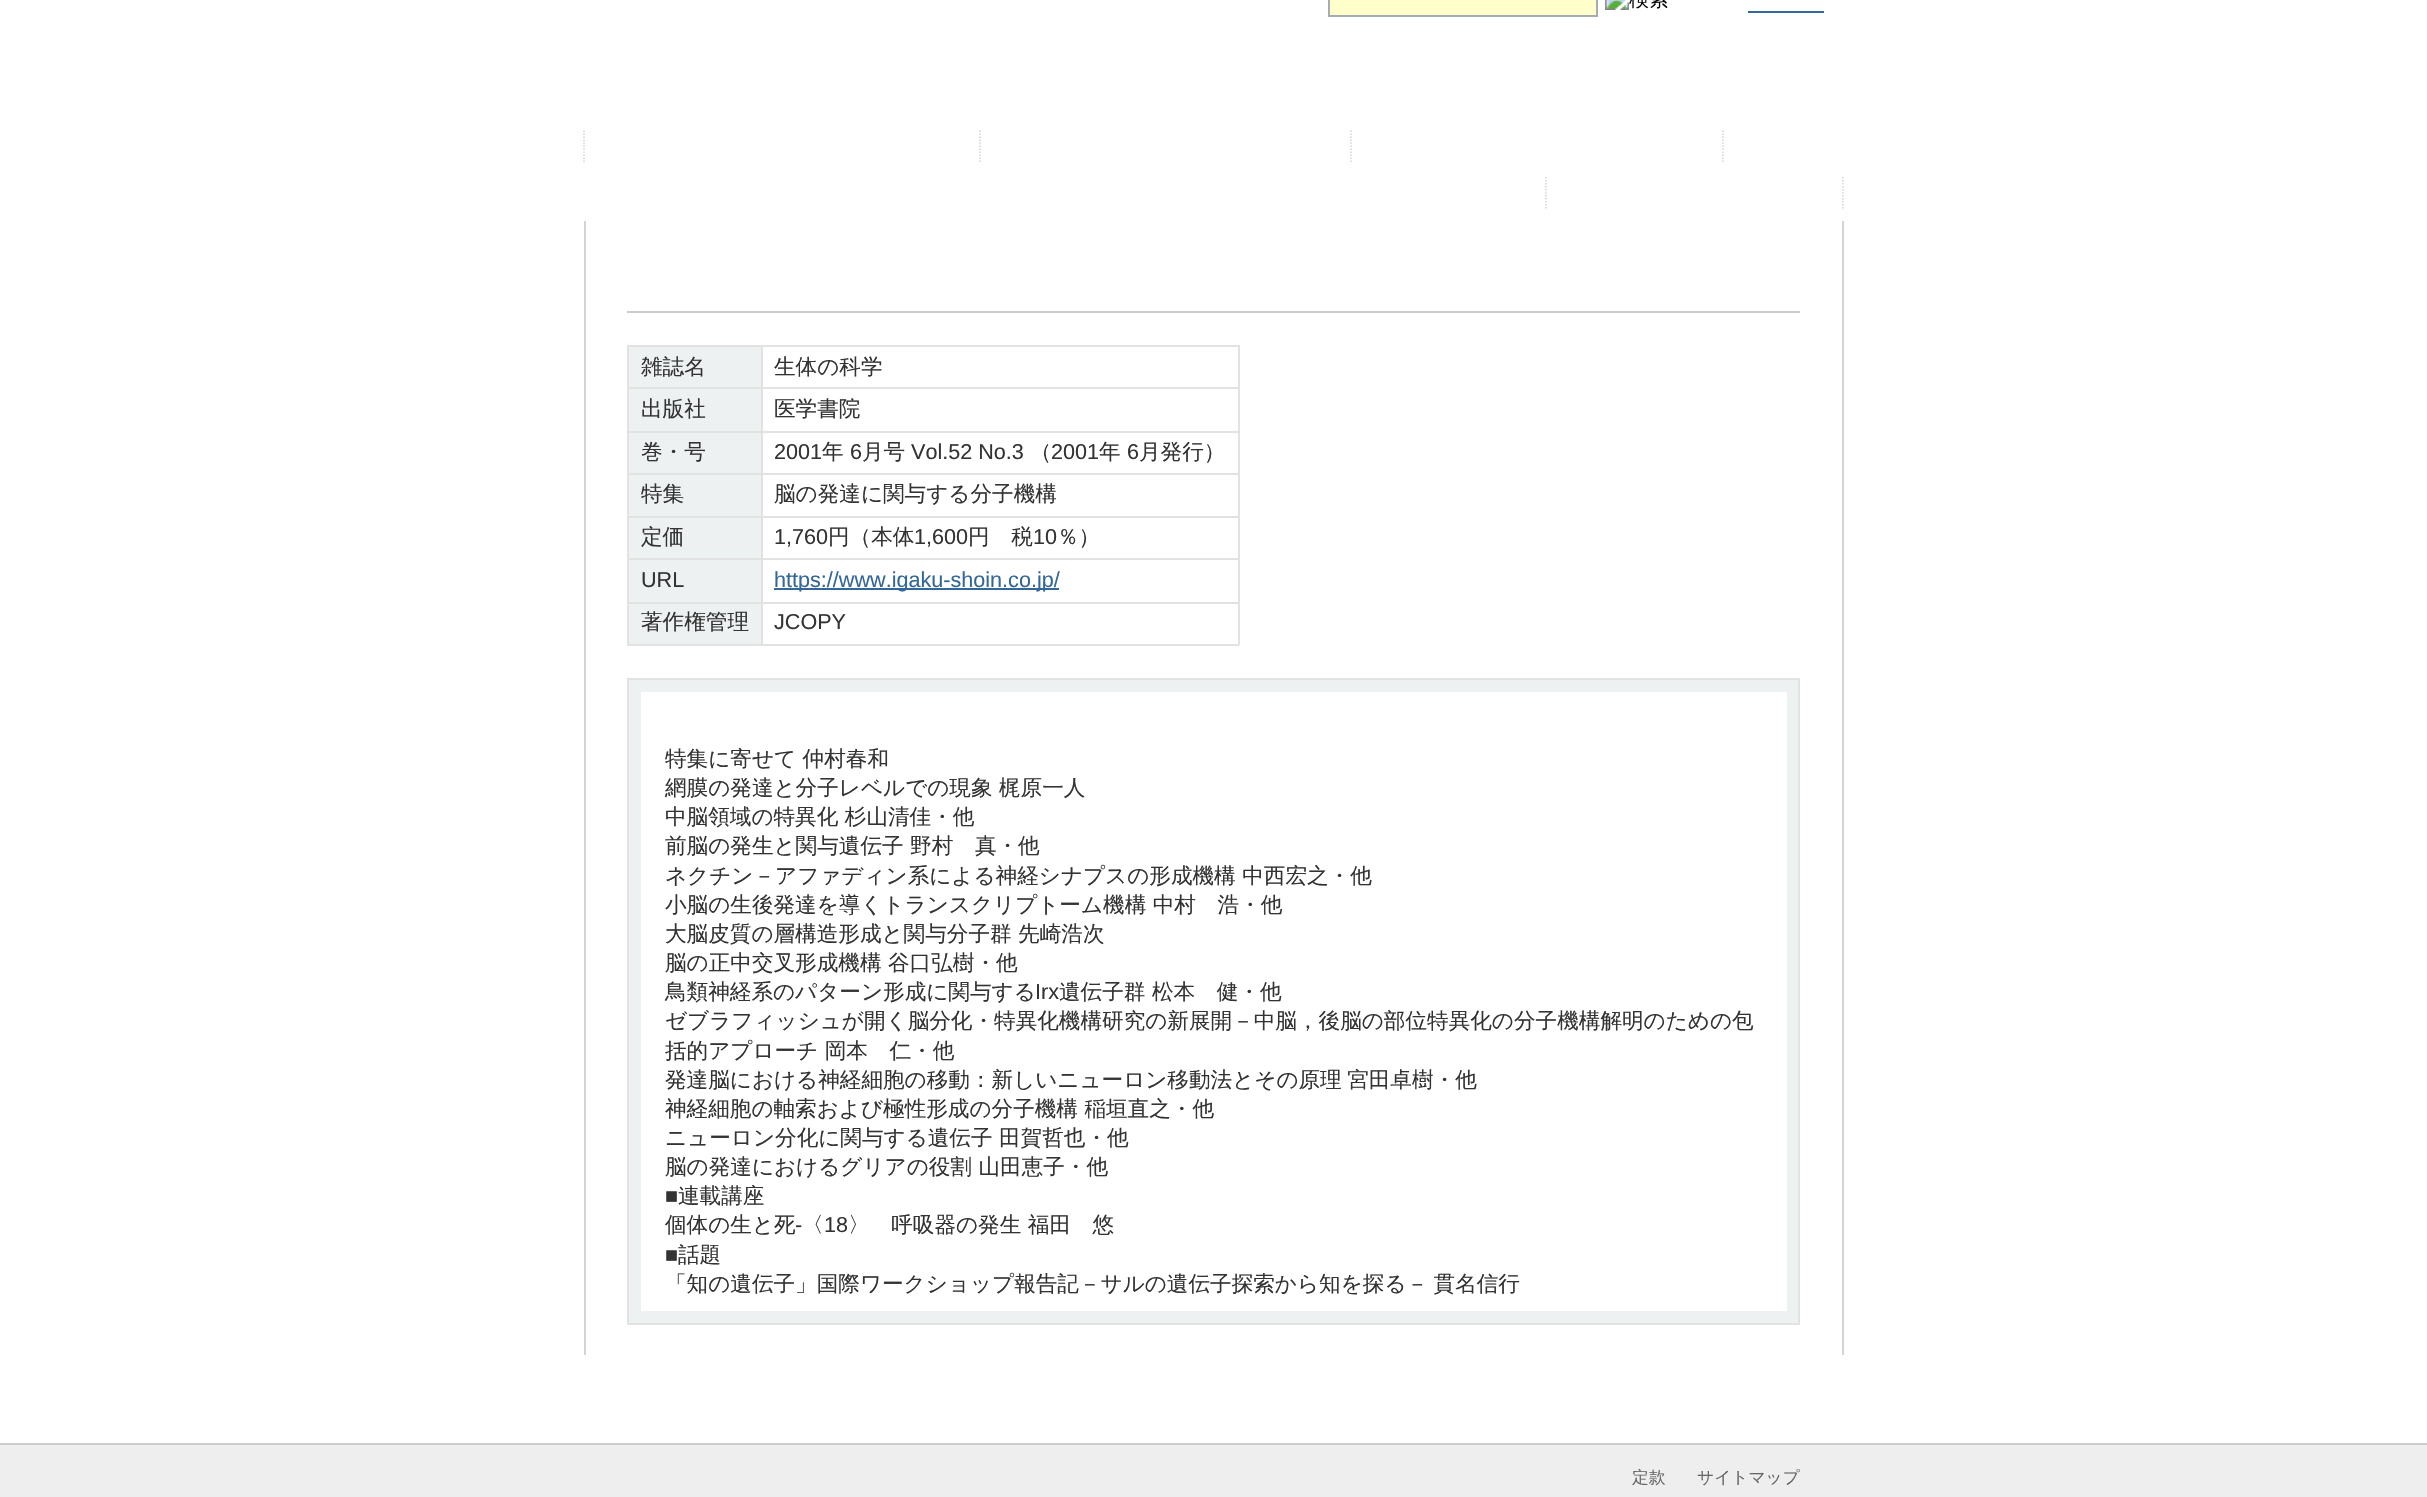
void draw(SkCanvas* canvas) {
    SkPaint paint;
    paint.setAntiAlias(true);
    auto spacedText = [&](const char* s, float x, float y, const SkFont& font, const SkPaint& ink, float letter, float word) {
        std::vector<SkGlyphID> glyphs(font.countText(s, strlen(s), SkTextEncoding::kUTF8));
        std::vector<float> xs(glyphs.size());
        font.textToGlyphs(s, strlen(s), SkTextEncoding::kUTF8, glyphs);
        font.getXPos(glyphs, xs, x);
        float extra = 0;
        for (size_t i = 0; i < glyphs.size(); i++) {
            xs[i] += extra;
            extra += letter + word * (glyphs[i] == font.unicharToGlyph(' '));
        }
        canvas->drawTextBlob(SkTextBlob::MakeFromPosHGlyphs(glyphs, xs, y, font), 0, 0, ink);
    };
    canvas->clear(0xFFFFFFFF);
    paint.setColor(0xFFFFFFCB);
    canvas->drawRect(SkRect::MakeXYWH(1329, -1, 268, 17), paint);
    paint.setStyle(SkPaint::kStroke_Style);
    paint.setStrokeWidth(2);
    paint.setColor(0xFFA5ACB2);
    canvas->drawRect(SkRect::MakeXYWH(1329, -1, 268, 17), paint);
    canvas->drawImageRect(SkImages::DeferredFromEncodedData(SkData::MakeFromFileName("img1.png")), SkRect::MakeXYWH(1605, 0, 63, 10), SkSamplingOptions());
    paint.setStyle(SkPaint::kFill_Style);
    paint.setColor(0xFF336699);
    canvas->drawRect(SkRect::MakeXYWH(1748, 11, 76, 2), paint);
    paint.setStyle(SkPaint::kStroke_Style);
    paint.setStrokeWidth(1.5f);
    paint.setColor(0xFFD5D3D3);
    paint.setPathEffect(SkDashPathEffect::Make({{1.5f, 1.5f}}, 0));
    canvas->drawPath(SkPathBuilder().moveTo(584, 130.5f).lineTo(584, 162).detach(), paint);
    paint.setPathEffect(nullptr);
    paint.setPathEffect(SkDashPathEffect::Make({{1.5f, 1.5f}}, 0));
    canvas->drawPath(SkPathBuilder().moveTo(980, 130.5f).lineTo(980, 162).detach(), paint);
    paint.setPathEffect(nullptr);
    paint.setPathEffect(SkDashPathEffect::Make({{1.5f, 1.5f}}, 0));
    canvas->drawPath(SkPathBuilder().moveTo(1723, 130.5f).lineTo(1723, 162).detach(), paint);
    paint.setPathEffect(nullptr);
    paint.setPathEffect(SkDashPathEffect::Make({{1.5f, 1.5f}}, 0));
    canvas->drawPath(SkPathBuilder().moveTo(1351, 130.5f).lineTo(1351, 162).detach(), paint);
    paint.setPathEffect(nullptr);
    paint.setPathEffect(SkDashPathEffect::Make({{1.5f, 1.5f}}, 0));
    canvas->drawPath(SkPathBuilder().moveTo(1843, 177).lineTo(1843, 208.5f).detach(), paint);
    paint.setPathEffect(nullptr);
    paint.setPathEffect(SkDashPathEffect::Make({{1.5f, 1.5f}}, 0));
    canvas->drawPath(SkPathBuilder().moveTo(1546, 177).lineTo(1546, 208.5f).detach(), paint);
    paint.setPathEffect(nullptr);
    paint.setStyle(SkPaint::kFill_Style);
    canvas->drawRect(SkRect::MakeXYWH(1842, 221, 2, 1134), paint);
    canvas->drawRect(SkRect::MakeXYWH(584, 221, 2, 1134), paint);
    paint.setColor(0xFFCCCCCC);
    canvas->drawRect(SkRect::MakeXYWH(627, 311, 1173, 2), paint);
    paint.setColor(0xFFEDF1F2);
    canvas->drawRect(SkRect::MakeXYWH(629, 347, 132, 40), paint);
    paint.setColor(0xFFE2E2E2);
    canvas->drawRect(SkRect::MakeXYWH(761, 345, 478, 2), paint);
    canvas->drawRect(SkRect::MakeXYWH(761, 387, 478, 2), paint);
    canvas->drawRect(SkRect::MakeXYWH(761, 431, 478, 2), paint);
    canvas->drawRect(SkRect::MakeXYWH(761, 473, 478, 2), paint);
    canvas->drawRect(SkRect::MakeXYWH(761, 516, 478, 2), paint);
    canvas->drawRect(SkRect::MakeXYWH(761, 558, 478, 2), paint);
    canvas->drawRect(SkRect::MakeXYWH(761, 602, 478, 2), paint);
    canvas->drawRect(SkRect::MakeXYWH(1238, 602, 2, 43), paint);
    canvas->drawRect(SkRect::MakeXYWH(761, 644, 478, 2), paint);
    canvas->drawRect(SkRect::MakeXYWH(761, 602, 2, 43), paint);
    canvas->drawRect(SkRect::MakeXYWH(627, 602, 135, 2), paint);
    canvas->drawRect(SkRect::MakeXYWH(761, 558, 2, 45), paint);
    canvas->drawRect(SkRect::MakeXYWH(627, 558, 135, 2), paint);
    canvas->drawRect(SkRect::MakeXYWH(761, 516, 2, 44), paint);
    canvas->drawRect(SkRect::MakeXYWH(627, 516, 135, 2), paint);
    canvas->drawRect(SkRect::MakeXYWH(761, 473, 2, 45), paint);
    canvas->drawRect(SkRect::MakeXYWH(627, 473, 135, 2), paint);
    canvas->drawRect(SkRect::MakeXYWH(761, 431, 2, 43), paint);
    canvas->drawRect(SkRect::MakeXYWH(627, 431, 135, 2), paint);
    canvas->drawRect(SkRect::MakeXYWH(761, 387, 2, 45), paint);
    canvas->drawRect(SkRect::MakeXYWH(627, 387, 135, 2), paint);
    canvas->drawRect(SkRect::MakeXYWH(761, 345, 2, 44), paint);
    canvas->drawRect(SkRect::MakeXYWH(627, 345, 135, 2), paint);
    canvas->drawRect(SkRect::MakeXYWH(627, 644, 135, 2), paint);
    canvas->drawRect(SkRect::MakeXYWH(627, 602, 2, 43), paint);
    canvas->drawRect(SkRect::MakeXYWH(627, 558, 2, 45), paint);
    canvas->drawRect(SkRect::MakeXYWH(627, 516, 2, 44), paint);
    canvas->drawRect(SkRect::MakeXYWH(627, 473, 2, 45), paint);
    canvas->drawRect(SkRect::MakeXYWH(627, 431, 2, 43), paint);
    canvas->drawRect(SkRect::MakeXYWH(627, 387, 2, 45), paint);
    canvas->drawRect(SkRect::MakeXYWH(627, 345, 2, 44), paint);
    SkFont font1(fontMgr->matchFamilyStyle("WenQuanYi Zen Hei", SkFontStyle(500, SkFontStyle::kNormal_Width, SkFontStyle::kUpright_Slant)), 21.6f);
    font1.setSubpixel(true);
    paint.setColor(0xFF333333);
    canvas->drawString("雑誌名", 641, 374, font1, paint);
    paint.setColor(0xFFE2E2E2);
    canvas->drawRect(SkRect::MakeXYWH(1238, 558, 2, 45), paint);
    canvas->drawRect(SkRect::MakeXYWH(1238, 516, 2, 44), paint);
    canvas->drawRect(SkRect::MakeXYWH(1238, 473, 2, 45), paint);
    canvas->drawRect(SkRect::MakeXYWH(1238, 431, 2, 43), paint);
    canvas->drawRect(SkRect::MakeXYWH(1238, 387, 2, 45), paint);
    canvas->drawRect(SkRect::MakeXYWH(1238, 345, 2, 44), paint);
    paint.setColor(0xFF333333);
    canvas->drawString("生体の科学", 774, 374, font1, paint);
    paint.setColor(0xFFEDF1F2);
    canvas->drawRect(SkRect::MakeXYWH(629, 389, 132, 42), paint);
    paint.setColor(0xFF333333);
    canvas->drawString("出版社", 641, 416, font1, paint);
    canvas->drawString("医学書院", 774, 416, font1, paint);
    paint.setColor(0xFFEDF1F2);
    canvas->drawRect(SkRect::MakeXYWH(629, 433, 132, 40), paint);
    paint.setColor(0xFF333333);
    canvas->drawString("巻・号", 641, 459, font1, paint);
    SkFont font2(fontMgr->matchFamilyStyle("Liberation Sans", SkFontStyle::Normal()), 21.6f);
    font2.setSubpixel(true);
    canvas->drawString("2001", 774, 459, font2, paint);
    canvas->drawString("年", 822, 459, font1, paint);
    canvas->drawString("6", 850, 459, font2, paint);
    canvas->drawString("月号", 862, 459, font1, paint);
    canvas->drawString("Vol.52 No.3", 911, 459, font2, paint);
    canvas->drawString("（", 1030, 459, font1, paint);
    canvas->drawString("2001", 1051, 459, font2, paint);
    canvas->drawString("年", 1099, 459, font1, paint);
    canvas->drawString("6", 1127, 459, font2, paint);
    canvas->drawString("月発行）", 1139, 459, font1, paint);
    paint.setColor(0xFFEDF1F2);
    canvas->drawRect(SkRect::MakeXYWH(629, 475, 132, 41), paint);
    paint.setColor(0xFF333333);
    canvas->drawString("特集", 641, 501, font1, paint);
    canvas->drawString("脳の発達に関与する分子機構", 774, 501, font1, paint);
    paint.setColor(0xFFEDF1F2);
    canvas->drawRect(SkRect::MakeXYWH(629, 518, 132, 40), paint);
    paint.setColor(0xFF333333);
    canvas->drawString("定価", 641, 544, font1, paint);
    canvas->drawString("1,760", 774, 544, font2, paint);
    canvas->drawString("円（本体", 828, 544, font1, paint);
    canvas->drawString("1,600", 914, 544, font2, paint);
    canvas->drawString("円　税", 968, 544, font1, paint);
    canvas->drawString("10", 1033, 544, font2, paint);
    canvas->drawString("％）", 1057, 544, font1, paint);
    paint.setColor(0xFFEDF1F2);
    canvas->drawRect(SkRect::MakeXYWH(629, 560, 132, 42), paint);
    paint.setColor(0xFF333333);
    canvas->drawString("URL", 641, 587, font2, paint);
    paint.setColor(0xFF336699);
    canvas->drawRect(SkRect::MakeXYWH(774, 588, 285, 2), paint);
    canvas->drawString("https://www.igaku-shoin.co.jp/", 774, 587, font2, paint);
    paint.setColor(0xFFEDF1F2);
    canvas->drawRect(SkRect::MakeXYWH(629, 604, 132, 40), paint);
    paint.setColor(0xFF333333);
    canvas->drawString("著作権管理", 641, 629, font1, paint);
    canvas->drawString("JCOPY", 774, 629, font2, paint);
    paint.setColor(0xFFEDF1F2);
    canvas->drawRect(SkRect::MakeXYWH(628, 679, 1171, 645), paint);
    paint.setStyle(SkPaint::kStroke_Style);
    paint.setStrokeWidth(2);
    paint.setColor(0xFFE2E2E2);
    canvas->drawRect(SkRect::MakeXYWH(628, 679, 1171, 645), paint);
    paint.setStyle(SkPaint::kFill_Style);
    paint.setColor(0xFFFFFFFF);
    canvas->drawRect(SkRect::MakeXYWH(641, 692, 1146, 619), paint);
    paint.setColor(0xFF333333);
    canvas->drawString("特集に寄せて 仲村春和", 665, 766, font1, paint);
    canvas->drawString("網膜の発達と分子レベルでの現象 梶原一人", 665, 795, font1, paint);
    canvas->drawString("中脳領域の特異化 杉山清佳・他", 665, 824, font1, paint);
    canvas->drawString("前脳の発生と関与遺伝子 野村　真・他", 665, 853, font1, paint);
    canvas->drawString("ネクチン－アファディン系による神経シナプスの形成機構 中西宏之・他", 665, 883, font1, paint);
    canvas->drawString("小脳の生後発達を導くトランスクリプトーム機構 中村　浩・他", 665, 912, font1, paint);
    canvas->drawString("大脳皮質の層構造形成と関与分子群 先崎浩次", 665, 941, font1, paint);
    canvas->drawString("脳の正中交叉形成機構 谷口弘樹・他", 665, 970, font1, paint);
    canvas->drawString("鳥類神経系のパターン形成に関与する", 665, 999, font1, paint);
    canvas->drawString("Irx", 1035, 999, font2, paint);
    canvas->drawString("遺伝子群 松本　健・他", 1059, 999, font1, paint);
    canvas->drawString("ゼブラフィッシュが開く脳分化・特異化機構研究の新展開－中脳，後脳の部位特異化の分子機構解明のための包", 665, 1028, font1, paint);
    canvas->drawString("括的アプローチ 岡本　仁・他", 665, 1058, font1, paint);
    spacedText("発達脳における神経細胞の移動：新しいニューロン移動法とその原理 宮田卓樹・他", 665, 1087, font1, paint, 0, -1);
    canvas->drawString("神経細胞の軸索および極性形成の分子機構 稲垣直之・他", 665, 1116, font1, paint);
    canvas->drawString("ニューロン分化に関与する遺伝子 田賀哲也・他", 665, 1145, font1, paint);
    canvas->drawString("脳の発達におけるグリアの役割 山田恵子・他", 665, 1174, font1, paint);
    canvas->drawString("■", 665, 1203, font2, paint);
    canvas->drawString("連載講座", 678, 1203, font1, paint);
    canvas->drawString("個体の生と死", 665, 1232, font1, paint);
    canvas->drawString("-", 795, 1232, font2, paint);
    canvas->drawString("〈", 802, 1232, font1, paint);
    canvas->drawString("18", 824, 1232, font2, paint);
    canvas->drawString("〉　呼吸器の発生 福田　悠", 848, 1232, font1, paint);
    canvas->drawString("■", 665, 1262, font2, paint);
    canvas->drawString("話題", 678, 1262, font1, paint);
    spacedText("「知の遺伝子」国際ワークショップ報告記－サルの遺伝子探索から知を探る－ 貫名信行", 665, 1291, font1, paint, 0, -1);
    paint.setColor(0xFFEEEEEE);
    canvas->drawRect(SkRect::MakeXYWH(0, 1445, 2427, 52), paint);
    paint.setColor(0xFFCCCCCC);
    canvas->drawRect(SkRect::MakeXYWH(0, 1443, 2427, 2), paint);
    SkFont font3(fontMgr->matchFamilyStyle("WenQuanYi Zen Hei", SkFontStyle(500, SkFontStyle::kNormal_Width, SkFontStyle::kUpright_Slant)), 16.75f);
    font3.setSubpixel(true);
    paint.setColor(0xFF666666);
    canvas->drawString("定款", 1632, 1483, font3, paint);
    canvas->drawString("サイトマップ", 1697, 1483, font3, paint);
}
